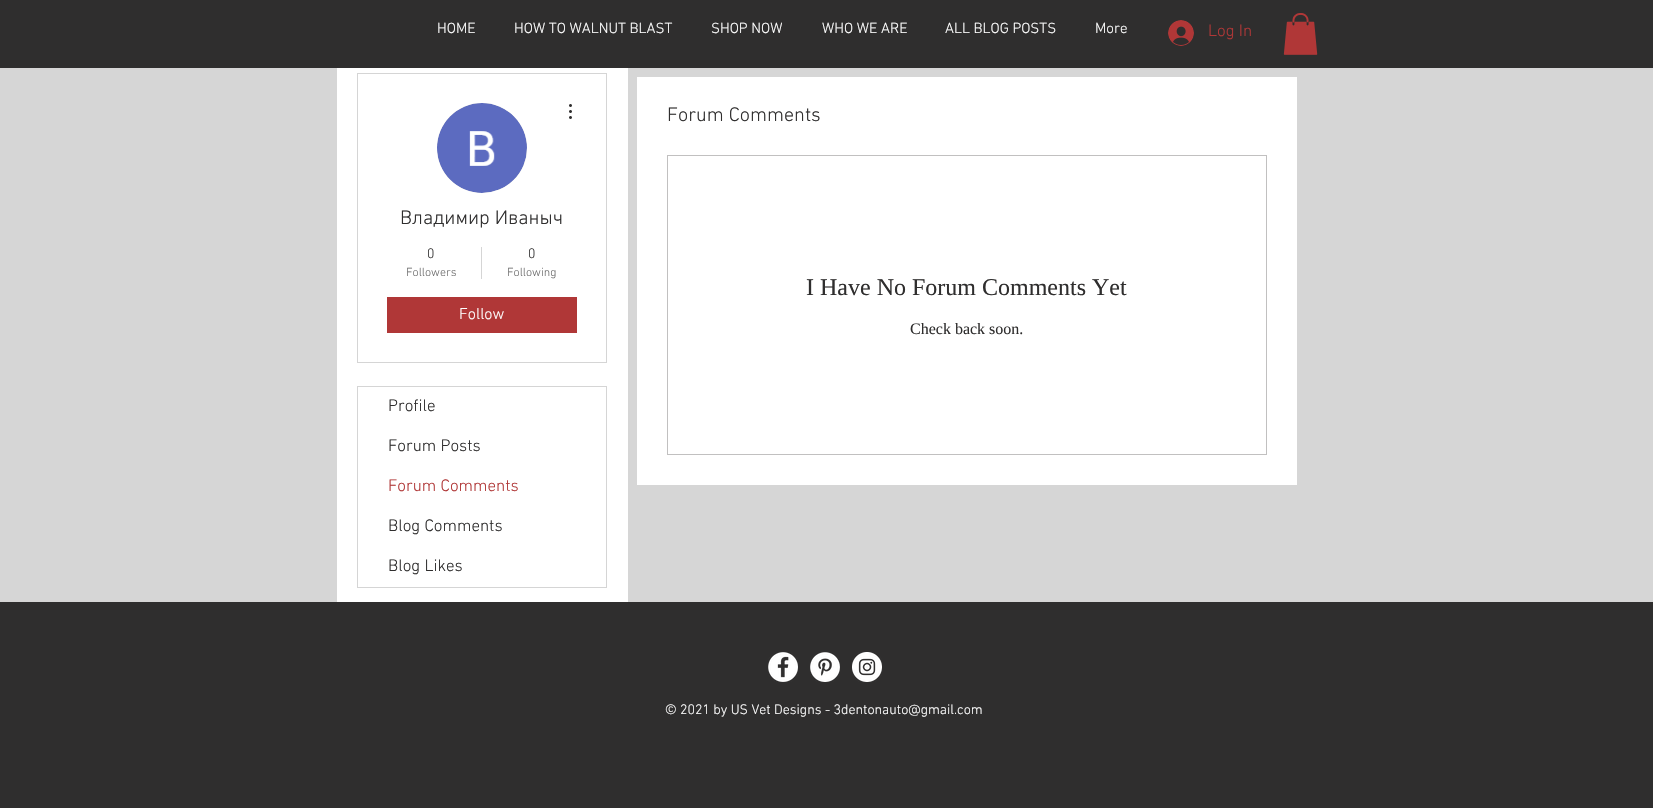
void draw(SkCanvas* canvas) {
    SkPaint paint;
    paint.setAntiAlias(true);
    canvas->clear(0xFFD6D6D6);
    paint.setColor(0xFF2F2E2E);
    canvas->drawRect(SkRect::MakeXYWH(0, 0, 1653, 68), paint);
    SkFont font1(fontMgr->matchFamilyStyle("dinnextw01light", SkFontStyle(300, SkFontStyle::kNormal_Width, SkFontStyle::kUpright_Slant)), 15);
    font1.setSubpixel(true);
    paint.setColor(0xFFFFFFFF);
    canvas->drawString("HOME", 437, 33, font1, paint);
    canvas->drawString("HOW TO WALNUT BLAST", 514, 33, font1, paint);
    canvas->drawString("SHOP NOW", 711, 33, font1, paint);
    canvas->drawString("WHO WE ARE", 822, 33, font1, paint);
    canvas->drawString("ALL BLOG POSTS", 945, 33, font1, paint);
    canvas->drawString("More", 1095, 33, font1, paint);
    canvas->drawImageRect(SkImages::DeferredFromEncodedData(SkData::MakeFromFileName("img1.png")), SkRect::MakeXYWH(1168, 20, 26, 26), SkSamplingOptions());
    SkFont font2(fontMgr->matchFamilyStyle("dinnextw01light", SkFontStyle(300, SkFontStyle::kNormal_Width, SkFontStyle::kUpright_Slant)), 17);
    font2.setSubpixel(true);
    paint.setColor(0xFFB03737);
    canvas->drawString("Log In", 1208, 36, font2, paint);
    canvas->drawImageRect(SkImages::DeferredFromEncodedData(SkData::MakeFromFileName("img2.png")), SkRect::MakeXYWH(1283, 13, 35, 42), SkSamplingOptions());
    paint.setColor(0xFFFFFFFF);
    canvas->drawRect(SkRect::MakeXYWH(337, 68, 291, 534), paint);
    paint.setStyle(SkPaint::kStroke_Style);
    paint.setStrokeWidth(1);
    paint.setColor(0xFFD5D5D5);
    canvas->drawRect(SkRect::MakeXYWH(357.5f, 73.5f, 249, 289), paint);
    paint.setStyle(SkPaint::kFill_Style);
    paint.setColor(0xFFD8D8D8);
    canvas->drawCircle(482, 148, 45, paint);
    canvas->drawImageRect(SkImages::DeferredFromEncodedData(SkData::MakeFromFileName("img3.png")), SkRect::MakeXYWH(437, 103, 90, 90), SkSamplingOptions());
    canvas->drawImageRect(SkImages::DeferredFromEncodedData(SkData::MakeFromFileName("img4.png")), SkRect::MakeXYWH(569, 104, 3, 15), SkSamplingOptions());
    SkFont font3(fontMgr->matchFamilyStyle("dinnextw01light", SkFontStyle(300, SkFontStyle::kNormal_Width, SkFontStyle::kUpright_Slant)), 20);
    font3.setSubpixel(true);
    paint.setColor(0xFF2F2E2E);
    canvas->drawString("Владимир Иваныч", 400, 224, font3, paint);
    SkFont font4(fontMgr->matchFamilyStyle("dinnextw01light", SkFontStyle(300, SkFontStyle::kNormal_Width, SkFontStyle::kUpright_Slant)), 14);
    font4.setSubpixel(true);
    canvas->drawString("0", 427, 258, font4, paint);
    SkFont font5(fontMgr->matchFamilyStyle("dinnextw01light", SkFontStyle(300, SkFontStyle::kNormal_Width, SkFontStyle::kUpright_Slant)), 12);
    font5.setSubpixel(true);
    paint.setColor(0xFF6D6D6D);
    canvas->drawString("Followers", 406, 276, font5, paint);
    paint.setColor(0xFFD5D5D5);
    canvas->drawRect(SkRect::MakeXYWH(481, 247, 1, 32), paint);
    paint.setColor(0xFF2F2E2E);
    canvas->drawString("0", 528, 258, font4, paint);
    paint.setColor(0xFF6D6D6D);
    canvas->drawString("Following", 507, 276, font5, paint);
    paint.setColor(0xFFB03737);
    canvas->drawRect(SkRect::MakeXYWH(387, 297, 190, 36), paint);
    SkFont font6(fontMgr->matchFamilyStyle("dinnextw01light", SkFontStyle(300, SkFontStyle::kNormal_Width, SkFontStyle::kUpright_Slant)), 16);
    font6.setSubpixel(true);
    paint.setColor(0xFFFFFFFF);
    canvas->drawString("Follow", 459, 319, font6, paint);
    paint.setStyle(SkPaint::kStroke_Style);
    paint.setColor(0xFFD5D5D5);
    canvas->drawRect(SkRect::MakeXYWH(357.5f, 386.5f, 249, 201), paint);
    paint.setStyle(SkPaint::kFill_Style);
    paint.setColor(0xFF2F2E2E);
    canvas->drawString("Profile", 388, 411, font2, paint);
    canvas->drawString("Forum Posts", 388, 451, font2, paint);
    paint.setColor(0xFFB03737);
    canvas->drawString("Forum Comments", 388, 491, font2, paint);
    paint.setColor(0xFF2F2E2E);
    canvas->drawString("Blog Comments", 388, 531, font2, paint);
    canvas->drawString("Blog Likes", 388, 571, font2, paint);
    paint.setColor(0xFFFFFFFF);
    canvas->drawRect(SkRect::MakeXYWH(637, 77, 660, 408), paint);
    paint.setColor(0xFF2F2E2E);
    canvas->drawString("Forum Comments", 667, 121, font3, paint);
    paint.setStyle(SkPaint::kStroke_Style);
    paint.setColor(0xFFC1C0C0);
    canvas->drawRect(SkRect::MakeXYWH(667.5f, 155.5f, 599, 299), paint);
    SkFont font7(fontMgr->matchFamilyStyle("Liberation Serif", SkFontStyle::Normal()), 24);
    font7.setSubpixel(true);
    paint.setStyle(SkPaint::kFill_Style);
    paint.setColor(0xFF2F2E2E);
    canvas->drawString("I Have No Forum Comments Yet", 806, 295, font7, paint);
    SkFont font8(fontMgr->matchFamilyStyle("Liberation Serif", SkFontStyle::Normal()), 16);
    font8.setSubpixel(true);
    canvas->drawString("Check back soon.", 910, 334, font8, paint);
    canvas->drawRect(SkRect::MakeXYWH(0, 602, 1653, 206), paint);
    canvas->drawImageRect(SkImages::DeferredFromEncodedData(SkData::MakeFromFileName("img5.png")), SkRect::MakeXYWH(768, 652, 30, 30), SkSamplingOptions());
    canvas->drawImageRect(SkImages::DeferredFromEncodedData(SkData::MakeFromFileName("img6.png")), SkRect::MakeXYWH(810, 652, 30, 30), SkSamplingOptions());
    canvas->drawImageRect(SkImages::DeferredFromEncodedData(SkData::MakeFromFileName("img7.png")), SkRect::MakeXYWH(852, 652, 30, 30), SkSamplingOptions());
    paint.setColor(0xFFFFFFFF);
    canvas->drawString("© 2021 by US Vet Designs - 3dentonauto@gmail.com", 665, 714, font4, paint);
}
